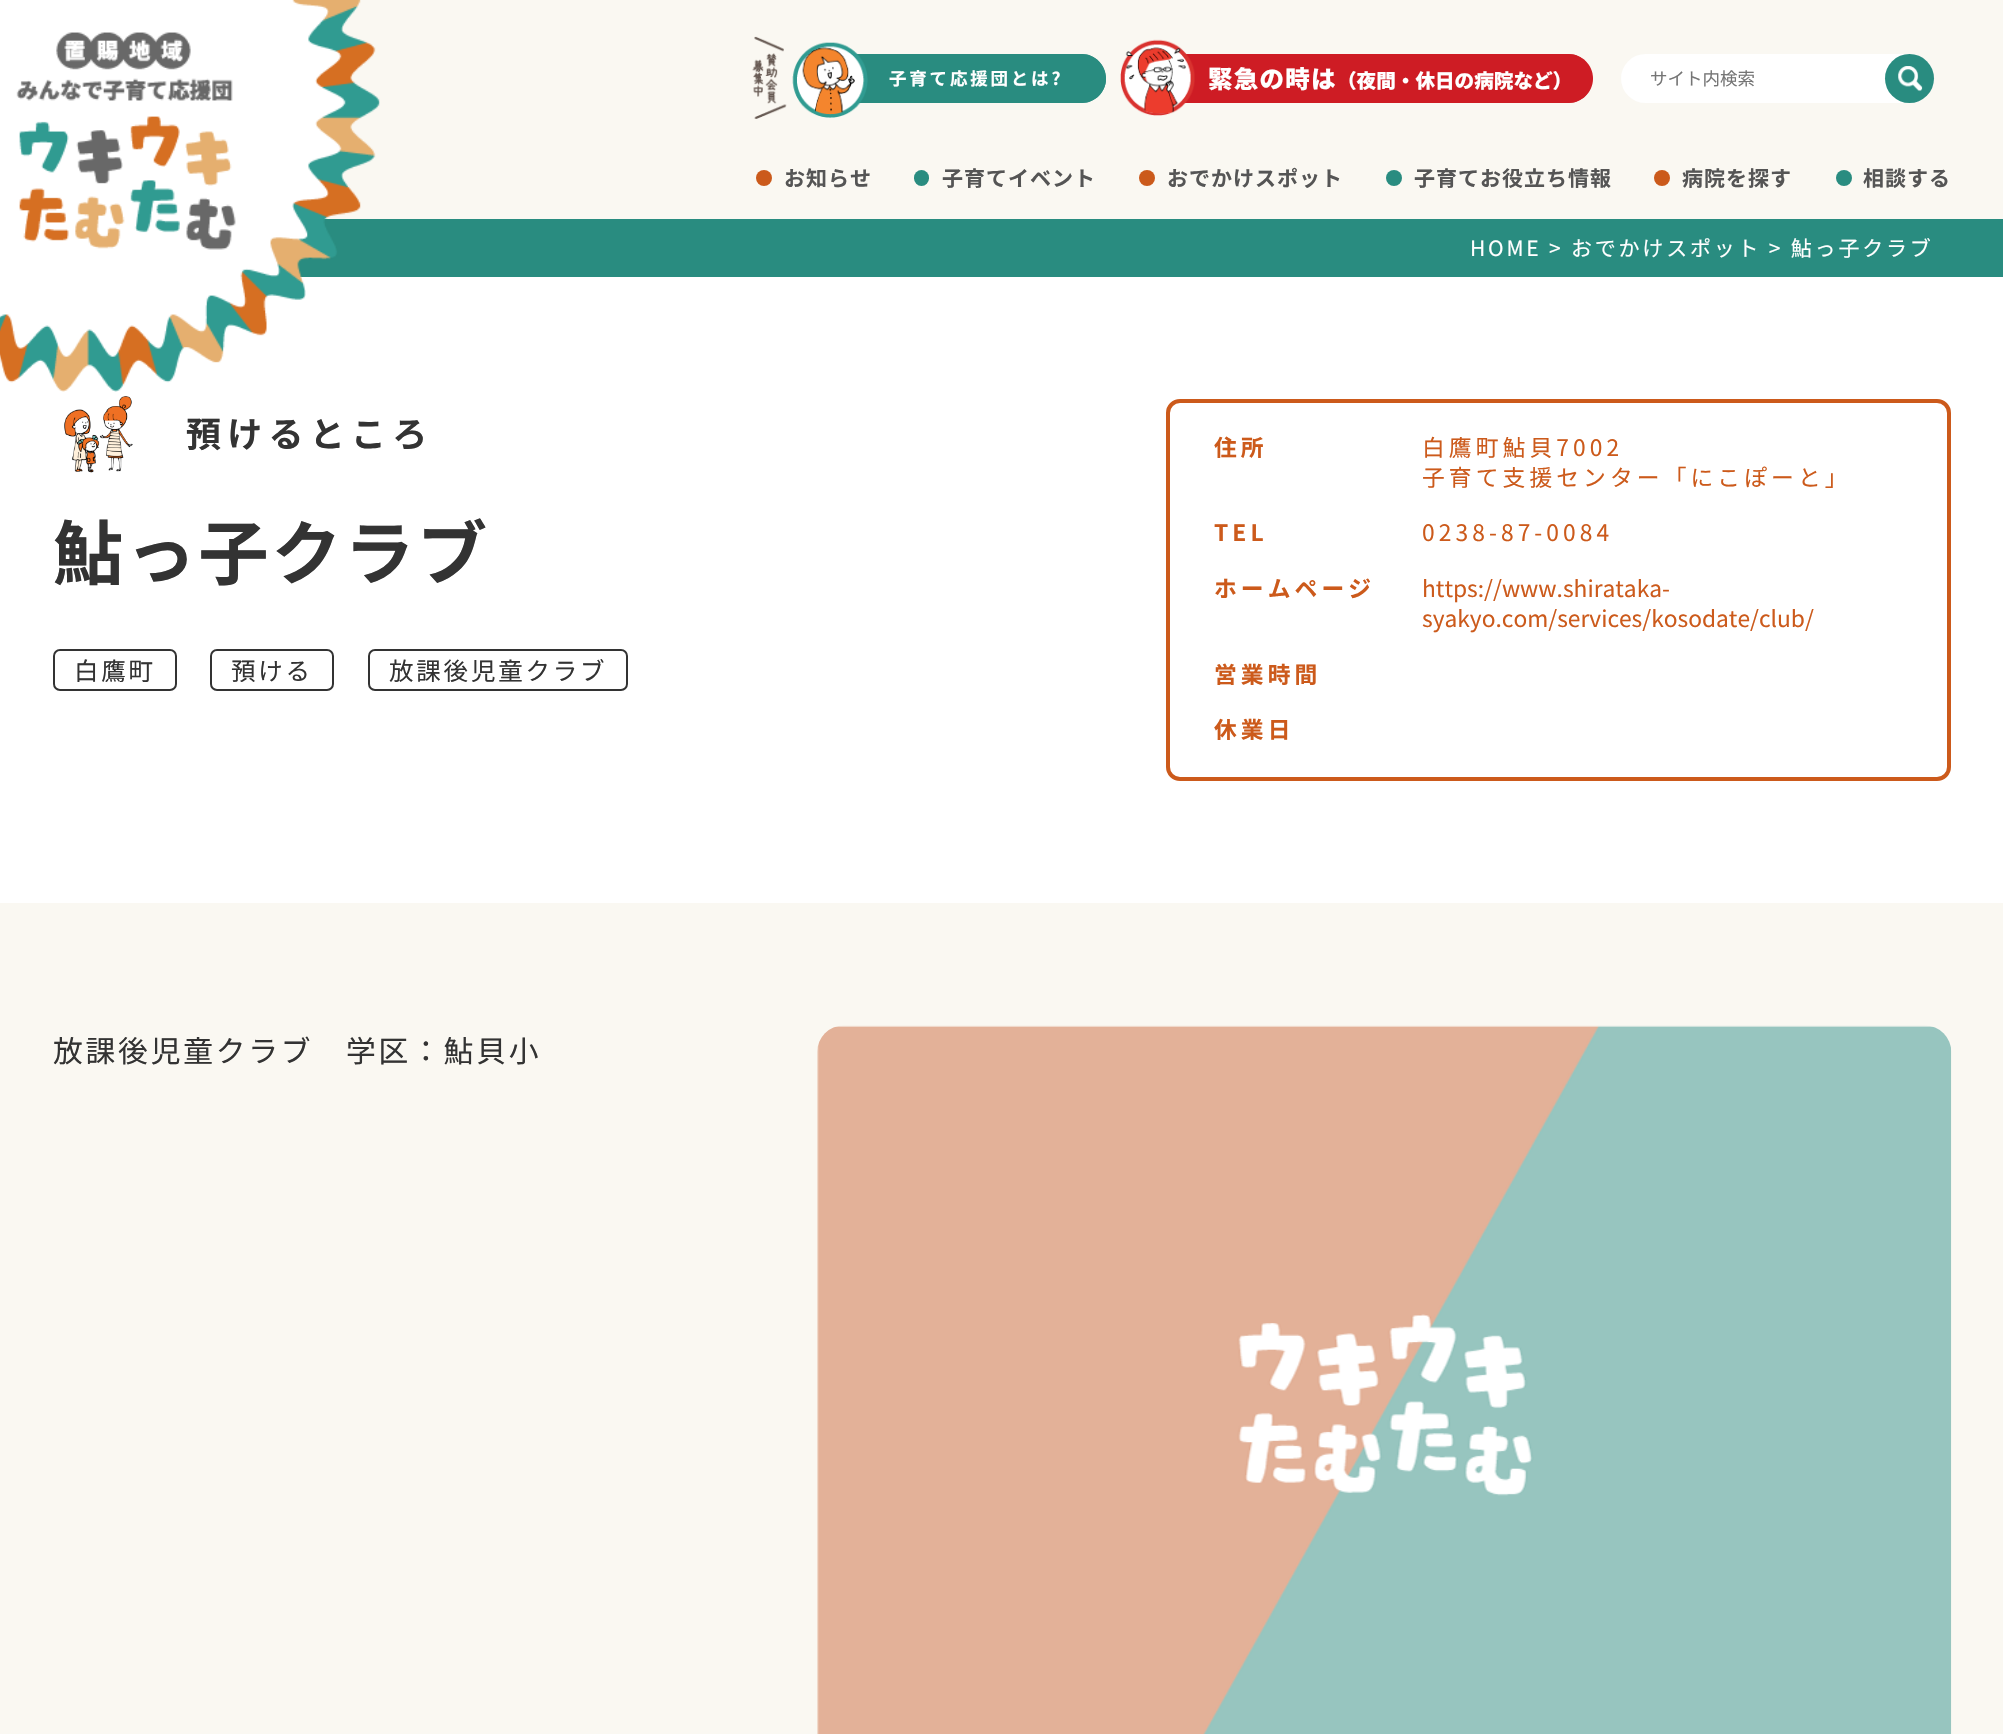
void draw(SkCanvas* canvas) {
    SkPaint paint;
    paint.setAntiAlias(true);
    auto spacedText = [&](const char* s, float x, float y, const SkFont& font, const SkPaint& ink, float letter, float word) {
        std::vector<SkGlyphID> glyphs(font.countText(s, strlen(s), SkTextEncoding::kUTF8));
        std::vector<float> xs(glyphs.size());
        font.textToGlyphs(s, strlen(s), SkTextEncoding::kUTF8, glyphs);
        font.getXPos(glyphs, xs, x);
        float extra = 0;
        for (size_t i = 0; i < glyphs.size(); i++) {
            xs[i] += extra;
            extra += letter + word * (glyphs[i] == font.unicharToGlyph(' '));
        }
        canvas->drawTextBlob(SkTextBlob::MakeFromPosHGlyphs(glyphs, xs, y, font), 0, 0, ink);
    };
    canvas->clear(0xFFFFFFFF);
    paint.setColor(0xFFFAF8F2);
    canvas->drawRect(SkRect::MakeXYWH(324, 0, 1679, 219), paint);
    paint.setColor(0xFF298C80);
    canvas->drawRect(SkRect::MakeXYWH(297, 219, 1706, 58), paint);
    canvas->drawImageRect(SkImages::DeferredFromEncodedData(SkData::MakeFromFileName("img1.png")), SkRect::MakeXYWH(0, 0, 380, 392), SkSamplingOptions());
    canvas->drawPath(SkPathBuilder().moveTo(854, 54).lineTo(1081.5f, 54).cubicTo(1095, 54, 1106, 65, 1106, 78.5f).cubicTo(1106, 92, 1095, 103, 1081.5f, 103).lineTo(854, 103).close().detach(), paint);
    canvas->drawPath(SkPathBuilder(SkPathFillType::kEvenOdd).moveTo(854, 54).lineTo(1082, 54).cubicTo(1095, 54, 1106, 65, 1106, 79).cubicTo(1106, 92, 1095, 103, 1082, 103).lineTo(854, 103).close().moveTo(854, 58).lineTo(1082, 58).cubicTo(1093, 58, 1102, 67, 1102, 79).cubicTo(1102, 90, 1093, 100, 1082, 100).lineTo(854, 100).close().detach(), paint);
    canvas->drawImageRect(SkImages::DeferredFromEncodedData(SkData::MakeFromFileName("img2.png")), SkRect::MakeXYWH(752, 36, 116, 83), SkSamplingOptions());
    SkFont font1(fontMgr->matchFamilyStyle("Noto Sans JP", SkFontStyle::Bold()), 17.5f);
    font1.setSubpixel(true);
    paint.setColor(0xFFFFFFFF);
    spacedText("子育て応援団とは?", 889, 85, font1, paint, 2.8f, 0);
    paint.setColor(0xFFCE1C24);
    canvas->drawPath(SkPathBuilder().moveTo(1181, 54).lineTo(1568.5f, 54).cubicTo(1582, 54, 1593, 65, 1593, 78.5f).cubicTo(1593, 92, 1582, 103, 1568.5f, 103).lineTo(1181, 103).close().detach(), paint);
    canvas->drawPath(SkPathBuilder(SkPathFillType::kEvenOdd).moveTo(1181, 54).lineTo(1568, 54).cubicTo(1582, 54, 1592, 65, 1592, 79).cubicTo(1592, 92, 1582, 103, 1568, 103).lineTo(1181, 103).close().moveTo(1181, 58).lineTo(1568, 58).cubicTo(1580, 58, 1589, 67, 1589, 79).cubicTo(1589, 90, 1580, 100, 1568, 100).lineTo(1181, 100).close().detach(), paint);
    canvas->drawImageRect(SkImages::DeferredFromEncodedData(SkData::MakeFromFileName("img3.png")), SkRect::MakeXYWH(1120, 39, 75, 77), SkSamplingOptions());
    SkFont font2(fontMgr->matchFamilyStyle("Noto Sans JP", SkFontStyle(900, SkFontStyle::kNormal_Width, SkFontStyle::kUpright_Slant)), 24.5f);
    font2.setSubpixel(true);
    paint.setColor(0xFFFFFFFF);
    spacedText("緊急の時は", 1208, 88, font2, paint, 1.25f, 0);
    SkFont font3(fontMgr->matchFamilyStyle("Noto Sans JP", SkFontStyle(900, SkFontStyle::kNormal_Width, SkFontStyle::kUpright_Slant)), 19.6f);
    font3.setSubpixel(true);
    canvas->drawString("（夜間・休日の病院など）", 1337, 88, font3, paint);
    canvas->drawRoundRect(SkRect::MakeXYWH(1621, 54, 313, 49), 24.5f, 24.5f, paint);
    SkFont font4(fontMgr->matchFamilyStyle("Noto Sans JP", SkFontStyle::Normal()), 17.5f);
    font4.setSubpixel(true);
    paint.setColor(0xFF757575);
    canvas->drawString("サイト内検索", 1650, 85, font4, paint);
    paint.setColor(0xFF298C80);
    canvas->drawCircle(1909.5f, 78.5f, 24.5f, paint);
    canvas->drawImageRect(SkImages::DeferredFromEncodedData(SkData::MakeFromFileName("img4.png")), SkRect::MakeXYWH(1898, 66, 25, 26), SkSamplingOptions());
    paint.setColor(0xFFCB5A1B);
    canvas->drawCircle(764, 178, 8, paint);
    SkFont font5(fontMgr->matchFamilyStyle("Noto Sans JP", SkFontStyle::Bold()), 21);
    font5.setSubpixel(true);
    paint.setColor(0xFF555555);
    spacedText("お知らせ", 784, 186, font5, paint, 1, 0);
    paint.setColor(0xFF298C80);
    canvas->drawRoundRect(SkRect::MakeXYWH(914, 170, 15, 16), 7.5f, 7.5f, paint);
    paint.setColor(0xFF555555);
    spacedText("子育てイベント", 942, 186, font5, paint, 1, 0);
    paint.setColor(0xFFCB5A1B);
    canvas->drawCircle(1147, 178, 8, paint);
    paint.setColor(0xFF555555);
    spacedText("おでかけスポット", 1167, 186, font5, paint, 1, 0);
    paint.setColor(0xFF298C80);
    canvas->drawCircle(1394, 178, 8, paint);
    paint.setColor(0xFF555555);
    spacedText("子育てお役立ち情報", 1414, 186, font5, paint, 1, 0);
    paint.setColor(0xFFCB5A1B);
    canvas->drawCircle(1662, 178, 8, paint);
    paint.setColor(0xFF555555);
    spacedText("病院を探す", 1682, 186, font5, paint, 1, 0);
    paint.setColor(0xFF298C80);
    canvas->drawCircle(1844, 178, 8, paint);
    paint.setColor(0xFF555555);
    spacedText("相談する", 1863, 186, font5, paint, 1, 0);
    SkFont font6(fontMgr->matchFamilyStyle("Noto Sans JP", SkFontStyle::Normal()), 21);
    font6.setSubpixel(true);
    paint.setColor(0xFFFFFFFF);
    spacedText("HOME > おでかけスポット > 鮎っ子クラブ", 1470, 256, font6, paint, 2.8f, 0);
    canvas->drawImageRect(SkImages::DeferredFromEncodedData(SkData::MakeFromFileName("img5.png")), SkRect::MakeXYWH(64, 396, 69, 77), SkSamplingOptions());
    SkFont font7(fontMgr->matchFamilyStyle("Noto Sans JP", SkFontStyle::Bold()), 35);
    font7.setSubpixel(true);
    paint.setColor(0xFF333333);
    spacedText("預けるところ", 186, 447, font7, paint, 6.25f, 0);
    SkFont font8(fontMgr->matchFamilyStyle("Noto Sans JP", SkFontStyle::Bold()), 70);
    font8.setSubpixel(true);
    spacedText("鮎っ子クラブ", 53, 579, font8, paint, 2.8f, 0);
    paint.setStyle(SkPaint::kStroke_Style);
    paint.setStrokeWidth(2);
    canvas->drawRoundRect(SkRect::MakeXYWH(54, 650, 122, 40), 6, 6, paint);
    SkFont font9(fontMgr->matchFamilyStyle("Noto Sans JP", SkFontStyle::Normal()), 24.5f);
    font9.setSubpixel(true);
    paint.setStyle(SkPaint::kFill_Style);
    spacedText("白鷹町", 74, 680, font9, paint, 2.8f, 0);
    paint.setStyle(SkPaint::kStroke_Style);
    canvas->drawRoundRect(SkRect::MakeXYWH(211, 650, 122, 40), 6, 6, paint);
    paint.setStyle(SkPaint::kFill_Style);
    spacedText("預ける", 231, 680, font9, paint, 2.8f, 0);
    paint.setStyle(SkPaint::kStroke_Style);
    canvas->drawRoundRect(SkRect::MakeXYWH(369, 650, 258, 40), 6, 6, paint);
    paint.setStyle(SkPaint::kFill_Style);
    spacedText("放課後児童クラブ", 389, 680, font9, paint, 2.8f, 0);
    paint.setStyle(SkPaint::kStroke_Style);
    paint.setStrokeWidth(4);
    paint.setColor(0xFFCC5A1B);
    canvas->drawRoundRect(SkRect::MakeXYWH(1168, 401, 781, 378), 12, 12, paint);
    SkFont font10(fontMgr->matchFamilyStyle("Noto Sans JP", SkFontStyle::Bold()), 22.75f);
    font10.setSubpixel(true);
    paint.setStyle(SkPaint::kFill_Style);
    spacedText("住所", 1214, 456, font10, paint, 4.1f, 0);
    SkFont font11(fontMgr->matchFamilyStyle("Noto Sans JP", SkFontStyle::Normal()), 22.75f);
    font11.setSubpixel(true);
    spacedText("白鷹町鮎貝7002", 1422, 456, font11, paint, 4.1f, 0);
    spacedText("子育て支援センター「にこぽーと」", 1422, 486, font11, paint, 4.1f, 0);
    spacedText("TEL", 1214, 541, font10, paint, 4.1f, 0);
    spacedText("0238-87-0084", 1422, 541, font11, paint, 4.1f, 0);
    spacedText("ホームページ", 1214, 597, font10, paint, 4.1f, 0);
    canvas->drawString("https://www.shirataka-", 1422, 597, font11, paint);
    canvas->drawString("syakyo.com/services/kosodate/club/", 1422, 627, font11, paint);
    spacedText("営業時間", 1214, 683, font10, paint, 4.1f, 0);
    spacedText("休業日", 1214, 738, font10, paint, 4.1f, 0);
    paint.setColor(0xFFFAF8F2);
    canvas->drawRect(SkRect::MakeXYWH(0, 903, 2003, 831), paint);
    SkFont font12(fontMgr->matchFamilyStyle("Noto Sans JP", SkFontStyle::Normal()), 29.75f);
    font12.setSubpixel(true);
    paint.setColor(0xFF333333);
    spacedText("放課後児童クラブ　学区：鮎貝小", 53, 1062, font12, paint, 2.8f, 0);
    canvas->drawImageRect(SkImages::DeferredFromEncodedData(SkData::MakeFromFileName("img6.png")), SkRect::MakeXYWH(817, 1025, 1135, 709), SkSamplingOptions());
}
